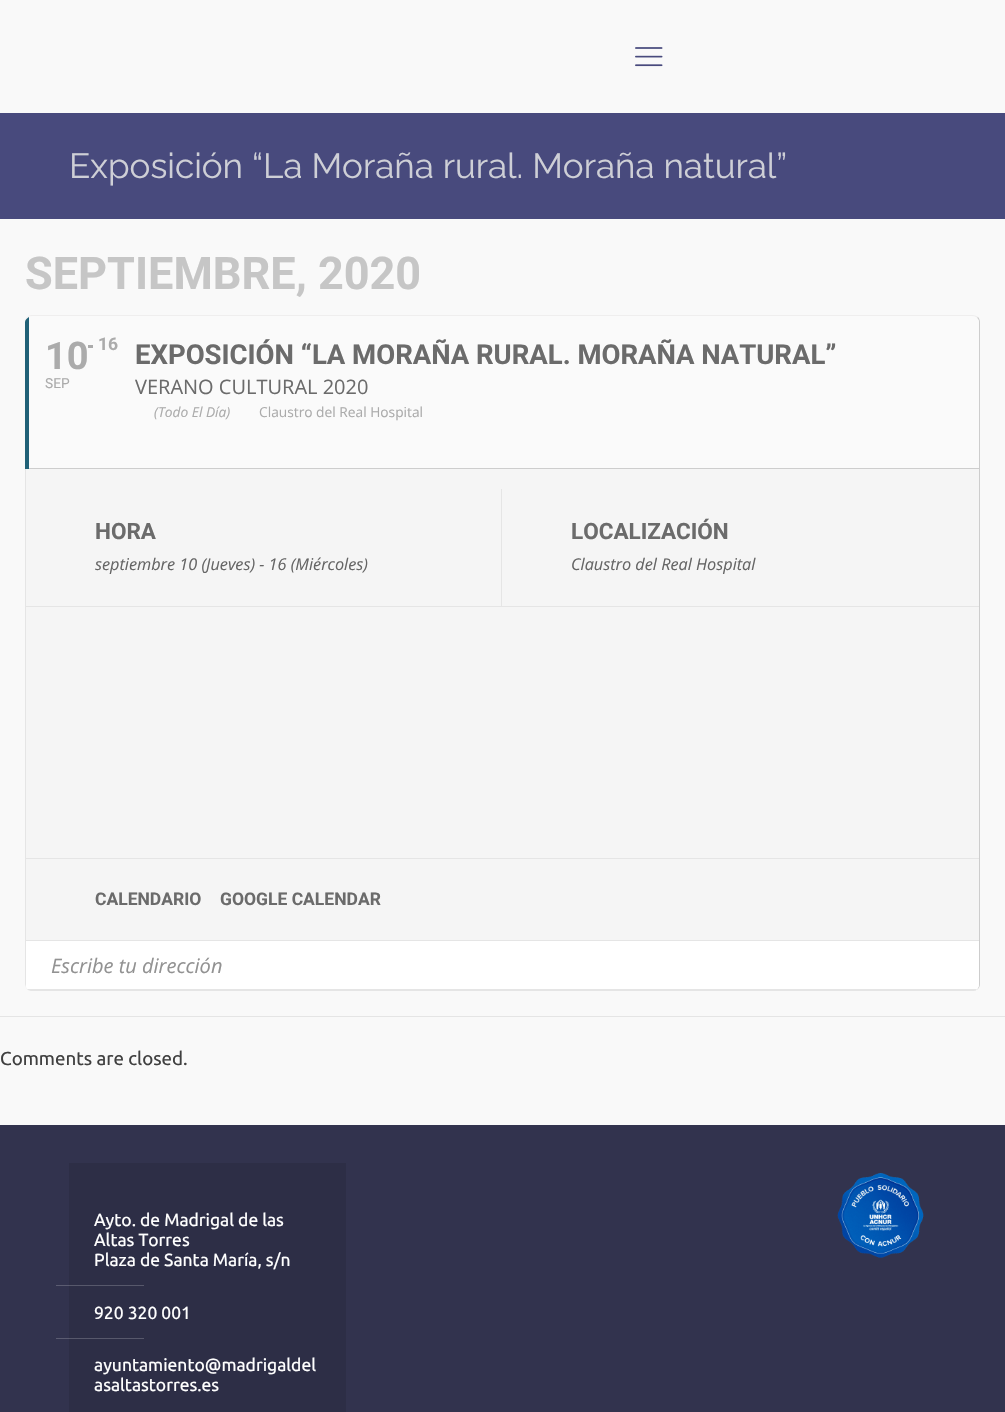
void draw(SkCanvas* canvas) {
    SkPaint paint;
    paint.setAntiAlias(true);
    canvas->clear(0xFFF9F9F9);
    canvas->drawImageRect(SkImages::DeferredFromEncodedData(SkData::MakeFromFileName("img1.png")), SkRect::MakeXYWH(635, 47, 28, 20), SkSamplingOptions());
    paint.setColor(0xFF484A7D);
    canvas->drawRect(SkRect::MakeXYWH(0, 113, 1005, 106), paint);
    SkFont font1(fontMgr->matchFamilyStyle("Raleway", SkFontStyle::Normal()), 35);
    font1.setSubpixel(true);
    paint.setColor(0xFFCECFD6);
    canvas->drawString("Exposición “La Moraña rural. Moraña natural”", 69, 178, font1, paint);
    SkFont font2(fontMgr->matchFamilyStyle("Roboto", SkFontStyle::Bold()), 45);
    font2.setSubpixel(true);
    paint.setColor(0xFFC6C6C6);
    canvas->drawString("SEPTIEMBRE, 2020", 25, 289, font2, paint);
    paint.setColor(0xFFEFEEEE);
    canvas->drawPath(SkPathBuilder().moveTo(32, 315).lineTo(972, 315).cubicTo(975, 315, 977, 316, 978, 317).lineTo(977, 318).cubicTo(976, 317, 974, 316, 972, 316).lineTo(32, 316).cubicTo(28, 316, 25, 319, 25, 322).cubicTo(25, 318, 28, 315, 32, 315).close().detach(), paint);
    paint.setColor(0xFFCDCDCD);
    canvas->drawPath(SkPathBuilder().moveTo(978, 317).lineTo(977, 318).cubicTo(978, 319, 979, 321, 979, 322).lineTo(979, 984).cubicTo(979, 988, 976, 991, 972, 991).cubicTo(977, 991, 980, 988, 980, 984).lineTo(980, 322).cubicTo(980, 320, 979, 318, 978, 317).close().detach(), paint);
    paint.setColor(0xFFFAFAFA);
    canvas->drawPath(SkPathBuilder().moveTo(32, 316).cubicTo(28, 316, 25, 319, 25, 322).lineTo(25, 469).lineTo(979, 469).lineTo(979, 322).cubicTo(979, 319, 976, 316, 972, 316).close().detach(), paint);
    paint.setColor(0xFF206177);
    canvas->drawPath(SkPathBuilder().moveTo(29, 317).cubicTo(27, 318, 25, 320, 25, 322).lineTo(25, 469).lineTo(29, 469).close().detach(), paint);
    SkFont font3(fontMgr->matchFamilyStyle("Roboto", SkFontStyle::Bold()), 38);
    font3.setSubpixel(true);
    paint.setColor(0xFFABABAB);
    canvas->drawString("10", 45, 369, font3, paint);
    SkFont font4(fontMgr->matchFamilyStyle("Roboto", SkFontStyle::Normal()), 13.75f);
    font4.setSubpixel(true);
    canvas->drawString("SEP", 45, 388, font4, paint);
    canvas->drawRect(SkRect::MakeXYWH(88, 345, 5, 3), paint);
    SkFont font5(fontMgr->matchFamilyStyle("Roboto", SkFontStyle::Bold()), 17.5f);
    font5.setSubpixel(true);
    canvas->drawString("16", 98, 350, font5, paint);
    SkFont font6(fontMgr->matchFamilyStyle("Roboto", SkFontStyle::Bold()), 27.5f);
    font6.setSubpixel(true);
    paint.setColor(0xFF6B6B6B);
    canvas->drawString("EXPOSICIÓN “LA MORAÑA RURAL. MORAÑA NATURAL”", 135, 364, font6, paint);
    SkFont font7(fontMgr->matchFamilyStyle("Open Sans", SkFontStyle::Normal()), 20);
    font7.setSubpixel(true);
    canvas->drawString("VERANO CULTURAL 2020", 135, 394, font7, paint);
    SkFont font8(fontMgr->matchFamilyStyle("Open Sans", SkFontStyle::Italic()), 13.75f);
    font8.setSubpixel(true);
    paint.setColor(0xFFABABAB);
    canvas->drawString("(Todo El Día)", 154, 417, font8, paint);
    SkFont font9(fontMgr->matchFamilyStyle("Open Sans", SkFontStyle::Normal()), 13.75f);
    font9.setSubpixel(true);
    canvas->drawString("Claustro del Real Hospital", 259, 417, font9, paint);
    paint.setColor(0xFFCDCDCD);
    canvas->drawRect(SkRect::MakeXYWH(29, 468, 950, 1), paint);
    paint.setColor(0xFFF5F5F5);
    canvas->drawPath(SkPathBuilder().moveTo(25, 469).lineTo(25, 984).cubicTo(25, 987, 27, 990, 30, 991).lineTo(974, 991).cubicTo(977, 990, 979, 987, 979, 984).lineTo(979, 469).close().detach(), paint);
    paint.setColor(0xFFE5E5E5);
    canvas->drawPath(SkPathBuilder().moveTo(31, 991).lineTo(28, 990).lineTo(976, 990).lineTo(974, 991).close().detach(), paint);
    canvas->drawPath(SkPathBuilder().moveTo(25, 469).lineTo(25, 984).lineTo(26, 987).lineTo(26, 469).close().detach(), paint);
    canvas->drawRect(SkRect::MakeXYWH(26, 606, 953, 1), paint);
    canvas->drawRect(SkRect::MakeXYWH(501, 489, 1, 117), paint);
    SkFont font10(fontMgr->matchFamilyStyle("Roboto", SkFontStyle::Bold()), 22.5f);
    font10.setSubpixel(true);
    paint.setColor(0xFF6B6B6B);
    canvas->drawString("HORA", 95, 539, font10, paint);
    SkFont font11(fontMgr->matchFamilyStyle("Open Sans", SkFontStyle::Italic()), 16.25f);
    font11.setSubpixel(true);
    paint.setColor(0xFF656565);
    canvas->drawString("septiembre 10 (Jueves) - 16 (Miércoles)", 95, 570, font11, paint);
    paint.setColor(0xFF6B6B6B);
    canvas->drawString("LOCALIZACIÓN", 571, 539, font10, paint);
    paint.setColor(0xFF656565);
    canvas->drawString("Claustro del Real Hospital", 571, 570, font11, paint);
    paint.setColor(0xFFE5E5E5);
    canvas->drawRect(SkRect::MakeXYWH(26, 858, 953, 1), paint);
    canvas->drawRect(SkRect::MakeXYWH(26, 940, 953, 1), paint);
    paint.setColor(0xFF6B6B6B);
    canvas->drawString("CALENDARIO", 95, 905, font5, paint);
    canvas->drawString("GOOGLE CALENDAR", 220, 905, font5, paint);
    paint.setColor(0xFFFFFFFF);
    canvas->drawPath(SkPathBuilder().moveTo(26, 941).lineTo(979, 941).lineTo(979, 984).cubicTo(979, 986, 978, 989, 976, 990).lineTo(28, 990).lineTo(26, 987).close().detach(), paint);
    paint.setColor(0xFFE5E5E5);
    canvas->drawPath(SkPathBuilder().moveTo(28, 990).lineTo(27, 989).lineTo(977, 989).lineTo(976, 990).close().detach(), paint);
    SkFont font12(fontMgr->matchFamilyStyle("Open Sans", SkFontStyle::Italic()), 20);
    font12.setSubpixel(true);
    paint.setColor(0xFF929292);
    canvas->drawString("Escribe tu dirección", 51, 973, font12, paint);
    paint.setColor(0xFFE5E5E5);
    canvas->drawRect(SkRect::MakeXYWH(0, 1016, 1005, 1), paint);
    SkFont font13(fontMgr->matchFamilyStyle("Ubuntu", SkFontStyle::Normal()), 18.75f);
    font13.setSubpixel(true);
    paint.setColor(0xFF404040);
    canvas->drawString("Comments are closed.", 0, 1065, font13, paint);
    paint.setColor(0xFF32334E);
    canvas->drawRect(SkRect::MakeXYWH(0, 1125, 1005, 287), paint);
    paint.setColor(0xFF5B5C71);
    canvas->drawRect(SkRect::MakeXYWH(56, 1338, 13, 1), paint);
    canvas->drawRect(SkRect::MakeXYWH(56, 1285, 13, 1), paint);
    paint.setColor(0xFF2D2E46);
    canvas->drawRect(SkRect::MakeXYWH(69, 1163, 277, 249), paint);
    paint.setColor(0xFF57586B);
    canvas->drawRect(SkRect::MakeXYWH(69, 1338, 75, 1), paint);
    canvas->drawRect(SkRect::MakeXYWH(69, 1285, 75, 1), paint);
    SkFont font14(fontMgr->matchFamilyStyle("Ubuntu", SkFontStyle::Normal()), 17.5f);
    font14.setSubpixel(true);
    paint.setColor(0xFFFFFFFF);
    canvas->drawString("Ayto. de Madrigal de las", 94, 1226, font14, paint);
    canvas->drawString("Altas Torres", 94, 1246, font14, paint);
    canvas->drawString("Plaza de Santa María, s/n", 94, 1266, font14, paint);
    canvas->drawString("920 320 001", 94, 1319, font14, paint);
    canvas->drawString("ayuntamiento@madrigaldel", 94, 1371, font14, paint);
    canvas->drawString("asaltastorres.es", 94, 1391, font14, paint);
    canvas->drawImageRect(SkImages::DeferredFromEncodedData(SkData::MakeFromFileName("img2.png")), SkRect::MakeXYWH(837, 1173, 87, 85), SkSamplingOptions());
}
